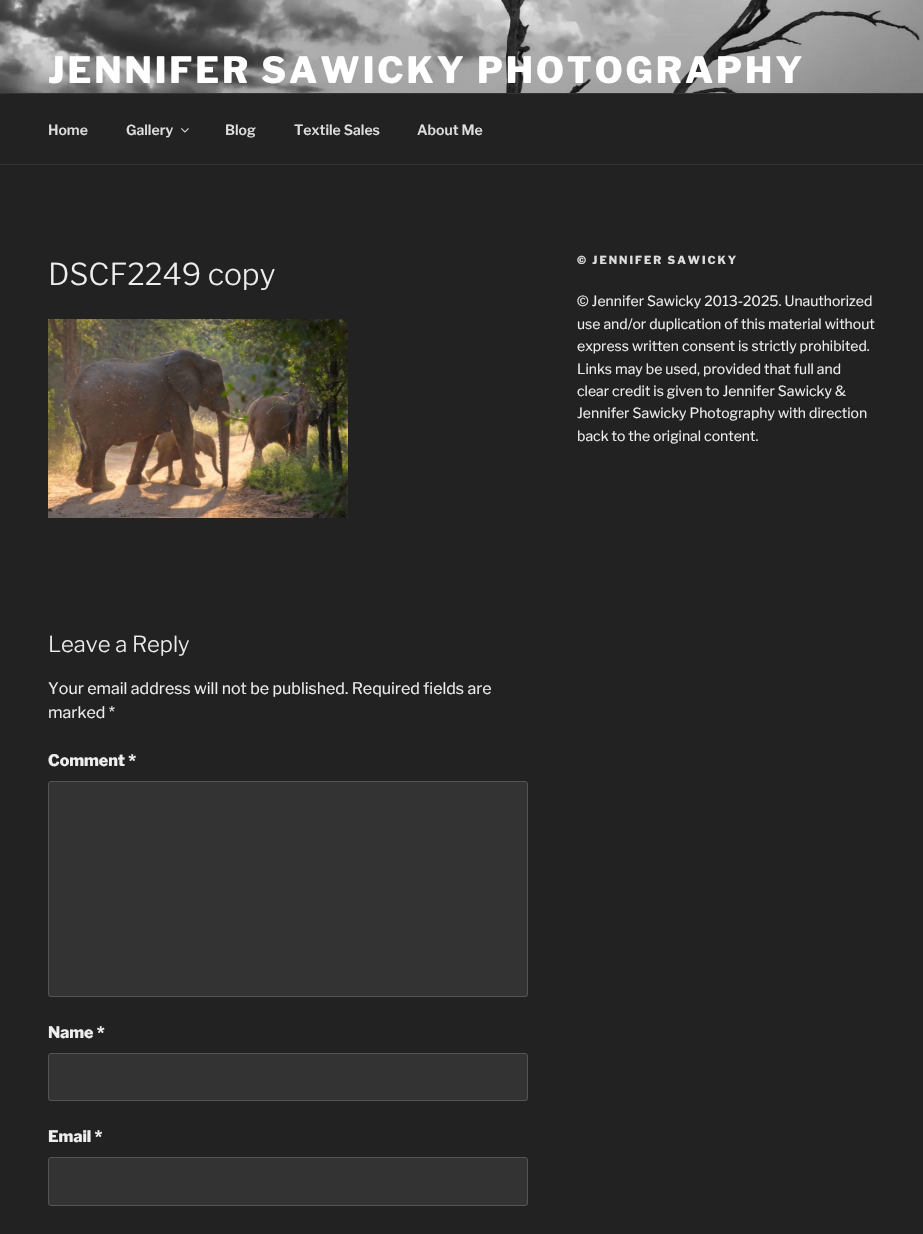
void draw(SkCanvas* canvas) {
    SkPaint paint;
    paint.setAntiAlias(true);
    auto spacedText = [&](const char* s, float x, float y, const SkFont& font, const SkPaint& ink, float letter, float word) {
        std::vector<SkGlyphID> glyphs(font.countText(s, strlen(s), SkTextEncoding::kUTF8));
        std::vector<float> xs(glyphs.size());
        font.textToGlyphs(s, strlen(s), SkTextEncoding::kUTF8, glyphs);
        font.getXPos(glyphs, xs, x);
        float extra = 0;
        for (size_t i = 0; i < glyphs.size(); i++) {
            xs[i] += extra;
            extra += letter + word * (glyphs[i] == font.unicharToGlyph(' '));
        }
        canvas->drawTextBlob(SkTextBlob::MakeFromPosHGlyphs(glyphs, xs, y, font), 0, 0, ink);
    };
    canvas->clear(0xFF222222);
    canvas->drawImageRect(SkImages::DeferredFromEncodedData(SkData::MakeFromFileName("img1.png")), SkRect::MakeXYWH(0, 0, 923, 93), SkSamplingOptions());
    SkFont font1(fontMgr->matchFamilyStyle("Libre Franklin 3", SkFontStyle(100, SkFontStyle::kNormal_Width, SkFontStyle::kUpright_Slant)), 36);
    font1.setSubpixel(true);
    paint.setColor(0xFFFFFFFF);
    spacedText("JENNIFER SAWICKY PHOTOGRAPHY", 48, 83, font1, paint, 2.9f, 0);
    paint.setColor(0xFF333333);
    canvas->drawRect(SkRect::MakeXYWH(0, 93, 923, 1), paint);
    canvas->drawRect(SkRect::MakeXYWH(0, 164, 923, 1), paint);
    SkFont font2(fontMgr->matchFamilyStyle("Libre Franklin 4", SkFontStyle(100, SkFontStyle::kNormal_Width, SkFontStyle::kUpright_Slant)), 14);
    font2.setSubpixel(true);
    paint.setColor(0xFFDDDDDD);
    canvas->drawString("Home", 48, 135, font2, paint);
    canvas->drawString("Gallery", 126, 135, font2, paint);
    canvas->drawImageRect(SkImages::DeferredFromEncodedData(SkData::MakeFromFileName("img2.png")), SkRect::MakeXYWH(181, 128, 8, 5), SkSamplingOptions());
    canvas->drawString("Blog", 225, 135, font2, paint);
    canvas->drawString("Textile Sales", 294, 135, font2, paint);
    canvas->drawString("About Me", 417, 135, font2, paint);
    SkFont font3(fontMgr->matchFamilyStyle("Libre Franklin", SkFontStyle(100, SkFontStyle::kNormal_Width, SkFontStyle::kUpright_Slant)), 30);
    font3.setSubpixel(true);
    paint.setColor(0xFFEEEEEE);
    canvas->drawString("DSCF2249 copy", 48, 285, font3, paint);
    canvas->drawImageRect(SkImages::DeferredFromEncodedData(SkData::MakeFromFileName("img3.png")), SkRect::MakeXYWH(48, 319, 300, 199), SkSamplingOptions());
    SkFont font4(fontMgr->matchFamilyStyle("Libre Franklin", SkFontStyle(100, SkFontStyle::kNormal_Width, SkFontStyle::kUpright_Slant)), 22);
    font4.setSubpixel(true);
    canvas->drawString("Leave a Reply", 48, 652, font4, paint);
    SkFont font5(fontMgr->matchFamilyStyle("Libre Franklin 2", SkFontStyle(100, SkFontStyle::kNormal_Width, SkFontStyle::kUpright_Slant)), 16);
    font5.setSubpixel(true);
    canvas->drawString("Your email address will not be published. Required fields are", 48, 694, font5, paint);
    canvas->drawString("marked *", 48, 718, font5, paint);
    SkFont font6(fontMgr->matchFamilyStyle("Libre Franklin 3", SkFontStyle(100, SkFontStyle::kNormal_Width, SkFontStyle::kUpright_Slant)), 16);
    font6.setSubpixel(true);
    canvas->drawString("Comment *", 48, 766, font6, paint);
    paint.setColor(0xFF333333);
    canvas->drawRoundRect(SkRect::MakeXYWH(48.5f, 781.5f, 479, 215), 2.5f, 2.5f, paint);
    paint.setStyle(SkPaint::kStroke_Style);
    paint.setStrokeWidth(1);
    paint.setColor(0xFF555555);
    canvas->drawRoundRect(SkRect::MakeXYWH(48.5f, 781.5f, 479, 215), 2.5f, 2.5f, paint);
    paint.setStyle(SkPaint::kFill_Style);
    paint.setColor(0xFFEEEEEE);
    canvas->drawString("Name *", 48, 1038, font6, paint);
    paint.setColor(0xFF333333);
    canvas->drawRoundRect(SkRect::MakeXYWH(48.5f, 1053.5f, 479, 47), 2.5f, 2.5f, paint);
    paint.setStyle(SkPaint::kStroke_Style);
    paint.setColor(0xFF555555);
    canvas->drawRoundRect(SkRect::MakeXYWH(48.5f, 1053.5f, 479, 47), 2.5f, 2.5f, paint);
    paint.setStyle(SkPaint::kFill_Style);
    paint.setColor(0xFFEEEEEE);
    canvas->drawString("Email *", 48, 1142, font6, paint);
    paint.setColor(0xFF333333);
    canvas->drawRoundRect(SkRect::MakeXYWH(48.5f, 1157.5f, 479, 48), 2.5f, 2.5f, paint);
    paint.setStyle(SkPaint::kStroke_Style);
    paint.setColor(0xFF555555);
    canvas->drawRoundRect(SkRect::MakeXYWH(48.5f, 1157.5f, 479, 48), 2.5f, 2.5f, paint);
    SkFont font7(fontMgr->matchFamilyStyle("Libre Franklin 3", SkFontStyle(100, SkFontStyle::kNormal_Width, SkFontStyle::kUpright_Slant)), 11);
    font7.setSubpixel(true);
    paint.setStyle(SkPaint::kFill_Style);
    paint.setColor(0xFFDDDDDD);
    spacedText("© JENNIFER SAWICKY", 577, 264, font7, paint, 2, 0);
    SkFont font8(fontMgr->matchFamilyStyle("Libre Franklin 2", SkFontStyle(100, SkFontStyle::kNormal_Width, SkFontStyle::kUpright_Slant)), 14);
    font8.setSubpixel(true);
    paint.setColor(0xFFEEEEEE);
    canvas->drawString("© Jennifer Sawicky 2013-2025. Unauthorized", 577, 306, font8, paint);
    canvas->drawString("use and/or duplication of this material without", 577, 329, font8, paint);
    canvas->drawString("express written consent is strictly prohibited.", 577, 351, font8, paint);
    canvas->drawString("Links may be used, provided that full and", 577, 374, font8, paint);
    canvas->drawString("clear credit is given to Jennifer Sawicky &", 577, 396, font8, paint);
    canvas->drawString("Jennifer Sawicky Photography with direction", 577, 418, font8, paint);
    canvas->drawString("back to the original content.", 577, 441, font8, paint);
}
